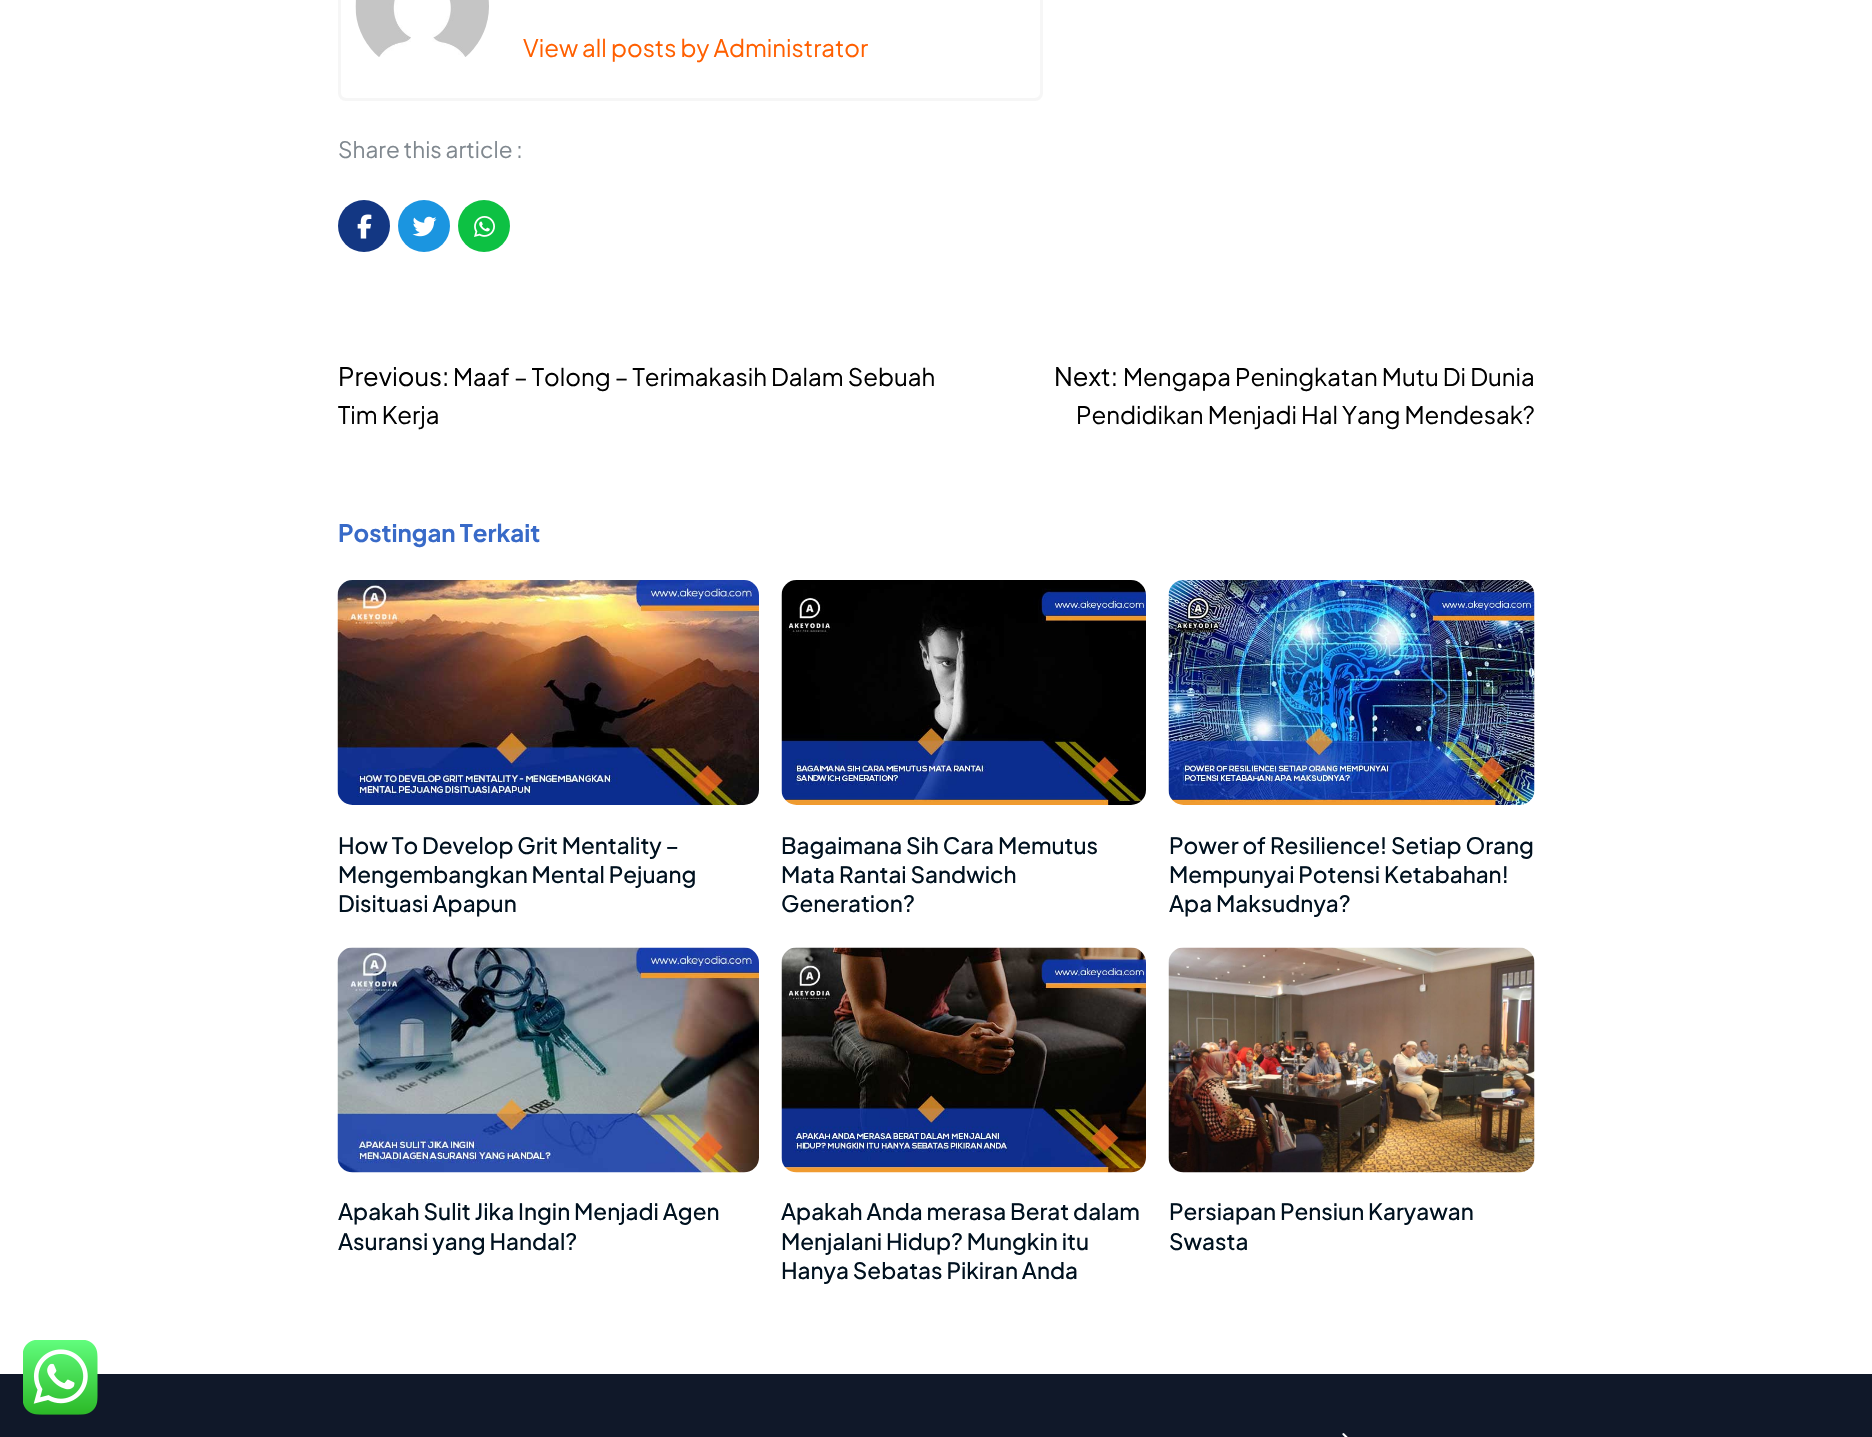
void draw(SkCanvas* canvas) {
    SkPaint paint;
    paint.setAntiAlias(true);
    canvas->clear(0xFFFFFFFF);
    paint.setStyle(SkPaint::kStroke_Style);
    paint.setStrokeWidth(3);
    paint.setColor(0xFFF6F6F6);
    canvas->drawRoundRect(SkRect::MakeXYWH(339.5f, -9.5f, 702, 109), 6.5f, 6.5f, paint);
    canvas->drawImageRect(SkImages::DeferredFromEncodedData(SkData::MakeFromFileName("img1.png")), SkRect::MakeXYWH(355, 0, 134, 57), SkSamplingOptions());
    SkFont font1(fontMgr->matchFamilyStyle("Plus Jakarta Sans", SkFontStyle::Normal()), 24);
    font1.setSubpixel(true);
    paint.setStyle(SkPaint::kFill_Style);
    paint.setColor(0xFFFF5F00);
    canvas->drawString("View all posts by Administrator", 523, 57, font1, paint);
    SkFont font2(fontMgr->matchFamilyStyle("Plus Jakarta Sans", SkFontStyle::Normal()), 22.5f);
    font2.setSubpixel(true);
    paint.setColor(0xFF80888F);
    canvas->drawString("Share this article :", 338, 158, font2, paint);
    paint.setColor(0xFF133783);
    canvas->drawCircle(364, 226, 26, paint);
    canvas->drawImageRect(SkImages::DeferredFromEncodedData(SkData::MakeFromFileName("img2.png")), SkRect::MakeXYWH(357, 214, 15, 25), SkSamplingOptions());
    paint.setColor(0xFF1B95E0);
    canvas->drawCircle(424, 226, 26, paint);
    canvas->drawImageRect(SkImages::DeferredFromEncodedData(SkData::MakeFromFileName("img3.png")), SkRect::MakeXYWH(412, 216, 25, 21), SkSamplingOptions());
    paint.setColor(0xFF0DC143);
    canvas->drawCircle(484, 226, 26, paint);
    canvas->drawImageRect(SkImages::DeferredFromEncodedData(SkData::MakeFromFileName("img4.png")), SkRect::MakeXYWH(474, 216, 21, 21), SkSamplingOptions());
    SkFont font3(fontMgr->matchFamilyStyle("Plus Jakarta Sans", SkFontStyle::Normal()), 25.5f);
    font3.setSubpixel(true);
    paint.setColor(0xFF000000);
    canvas->drawString("Previous:", 338, 386, font3, paint);
    canvas->drawString("Maaf – Tolong – Terimakasih Dalam Sebuah", 453, 386, font1, paint);
    canvas->drawString("Tim Kerja", 338, 424, font1, paint);
    canvas->drawString("Next:", 1054, 386, font3, paint);
    canvas->drawString("Mengapa Peningkatan Mutu Di Dunia", 1123, 386, font1, paint);
    canvas->drawString("Pendidikan Menjadi Hal Yang Mendesak?", 1076, 424, font1, paint);
    SkFont font4(fontMgr->matchFamilyStyle("Plus Jakarta Sans", SkFontStyle::Bold()), 24);
    font4.setSubpixel(true);
    paint.setColor(0xFF386AC8);
    canvas->drawString("Postingan Terkait", 338, 542, font4, paint);
    canvas->drawImageRect(SkImages::DeferredFromEncodedData(SkData::MakeFromFileName("img5.png")), SkRect::MakeXYWH(337, 580, 422, 225), SkSamplingOptions());
    SkFont font5(fontMgr->matchFamilyStyle("Plus Jakarta Sans", SkFontStyle(500, SkFontStyle::kNormal_Width, SkFontStyle::kUpright_Slant)), 22.5f);
    font5.setSubpixel(true);
    paint.setColor(0xFF00111F);
    canvas->drawString("How To Develop Grit Mentality –", 338, 854, font5, paint);
    canvas->drawString("Mengembangkan Mental Pejuang", 338, 883, font5, paint);
    canvas->drawString("Disituasi Apapun", 338, 912, font5, paint);
    canvas->drawImageRect(SkImages::DeferredFromEncodedData(SkData::MakeFromFileName("img6.png")), SkRect::MakeXYWH(781, 580, 365, 225), SkSamplingOptions());
    canvas->drawString("Bagaimana Sih Cara Memutus", 781, 854, font5, paint);
    canvas->drawString("Mata Rantai Sandwich", 781, 883, font5, paint);
    canvas->drawString("Generation?", 781, 912, font5, paint);
    canvas->drawImageRect(SkImages::DeferredFromEncodedData(SkData::MakeFromFileName("img7.png")), SkRect::MakeXYWH(1168, 580, 367, 225), SkSamplingOptions());
    canvas->drawString("Power of Resilience! Setiap Orang", 1169, 854, font5, paint);
    canvas->drawString("Mempunyai Potensi Ketabahan!", 1169, 883, font5, paint);
    canvas->drawString("Apa Maksudnya?", 1169, 912, font5, paint);
    canvas->drawImageRect(SkImages::DeferredFromEncodedData(SkData::MakeFromFileName("img8.png")), SkRect::MakeXYWH(337, 947, 422, 226), SkSamplingOptions());
    canvas->drawString("Apakah Sulit Jika Ingin Menjadi Agen", 338, 1220, font5, paint);
    canvas->drawString("Asuransi yang Handal?", 338, 1250, font5, paint);
    canvas->drawImageRect(SkImages::DeferredFromEncodedData(SkData::MakeFromFileName("img9.png")), SkRect::MakeXYWH(781, 947, 365, 226), SkSamplingOptions());
    canvas->drawString("Apakah Anda merasa Berat dalam", 781, 1220, font5, paint);
    canvas->drawString("Menjalani Hidup? Mungkin itu", 781, 1250, font5, paint);
    canvas->drawString("Hanya Sebatas Pikiran Anda", 781, 1279, font5, paint);
    canvas->drawImageRect(SkImages::DeferredFromEncodedData(SkData::MakeFromFileName("img10.png")), SkRect::MakeXYWH(1168, 947, 367, 226), SkSamplingOptions());
    canvas->drawString("Persiapan Pensiun Karyawan", 1169, 1220, font5, paint);
    canvas->drawString("Swasta", 1169, 1250, font5, paint);
    paint.setColor(0xFF101829);
    canvas->drawRect(SkRect::MakeXYWH(0, 1374, 1872, 63), paint);
    canvas->drawImageRect(SkImages::DeferredFromEncodedData(SkData::MakeFromFileName("img11.png")), SkRect::MakeXYWH(23, 1340, 75, 75), SkSamplingOptions());
    canvas->drawImageRect(SkImages::DeferredFromEncodedData(SkData::MakeFromFileName("img12.png")), SkRect::MakeXYWH(1342, 1433, 6, 4), SkSamplingOptions());
}
